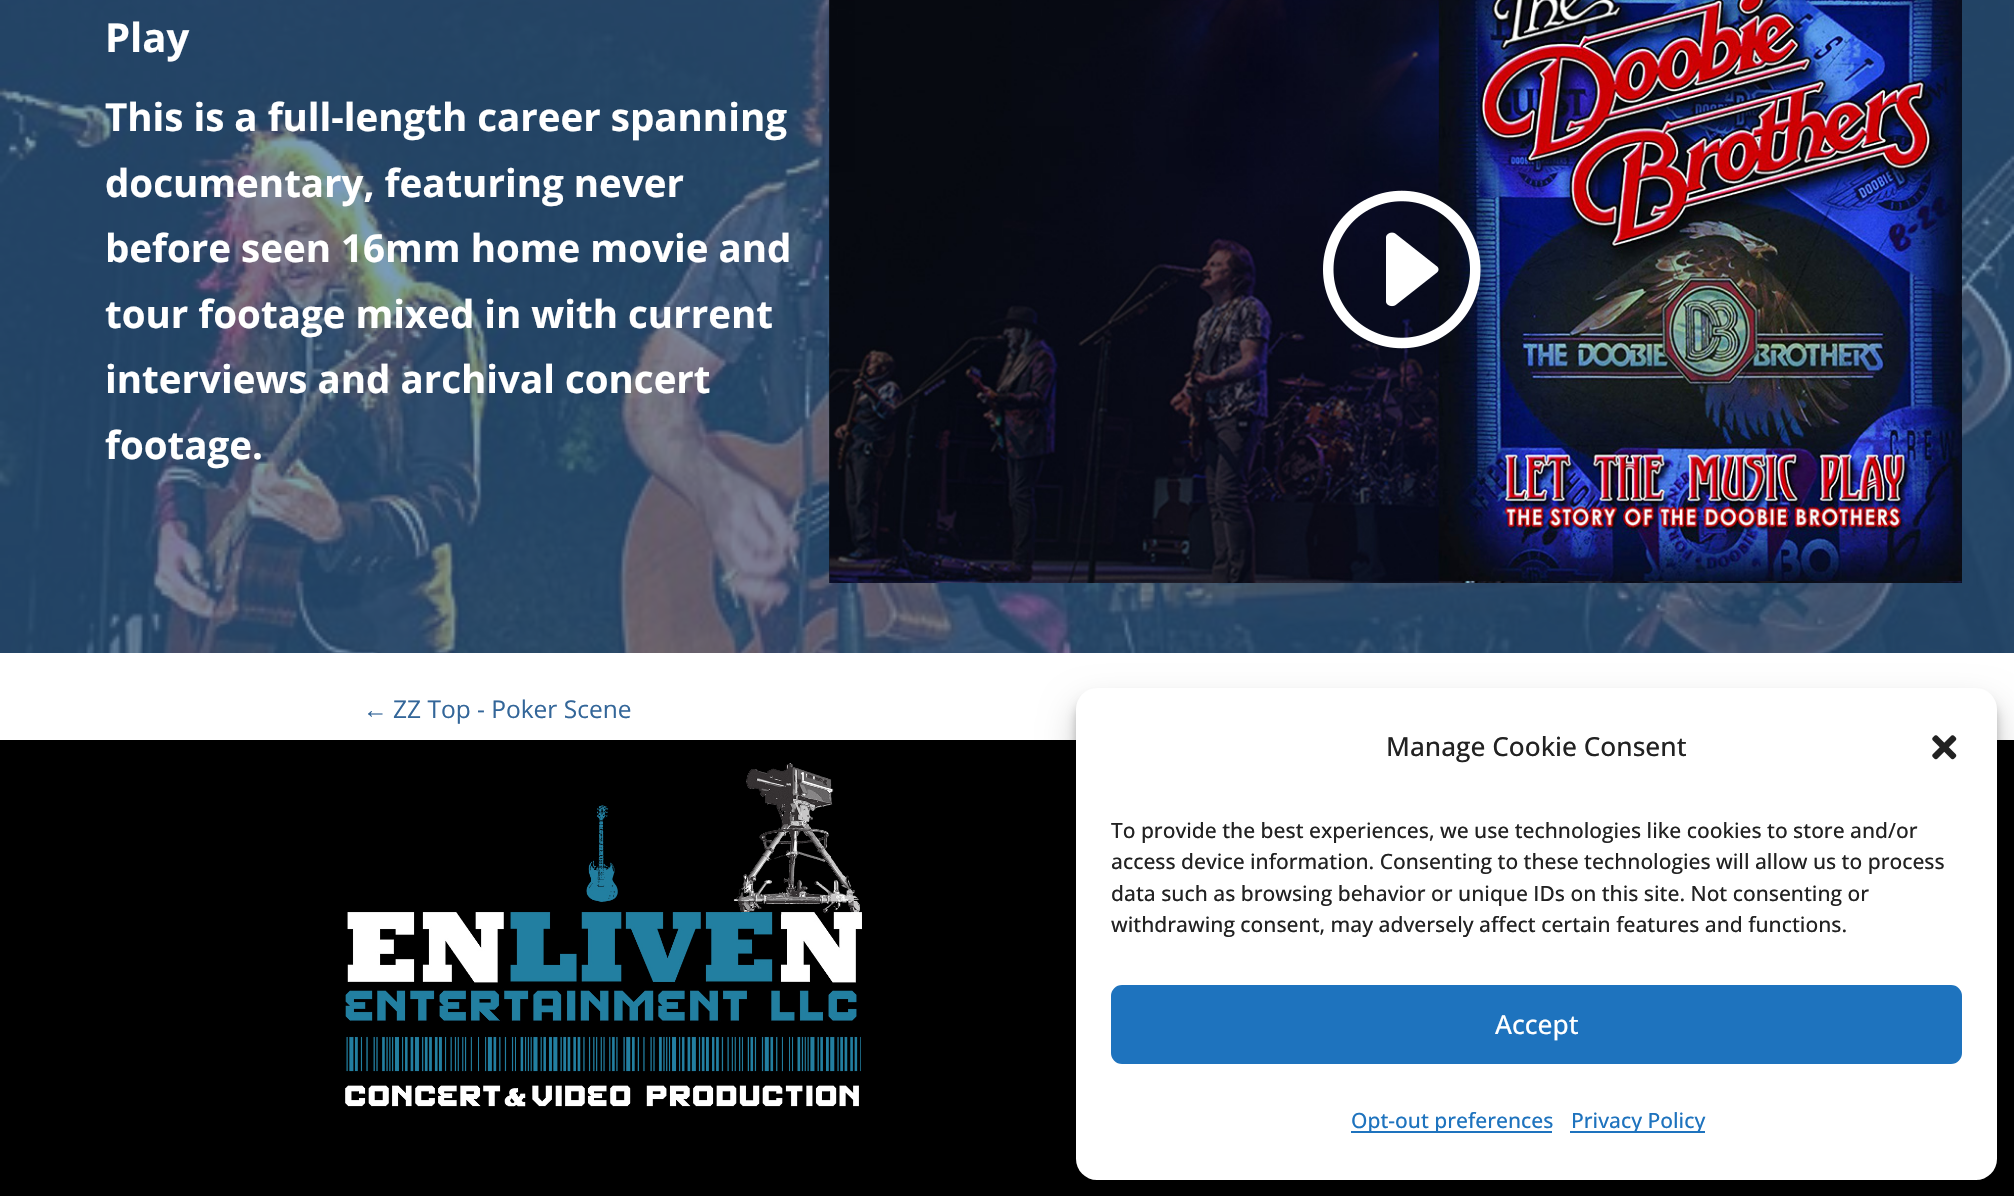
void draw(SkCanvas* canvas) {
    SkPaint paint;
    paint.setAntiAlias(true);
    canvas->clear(0xFFFFFFFF);
    canvas->drawImageRect(SkImages::DeferredFromEncodedData(SkData::MakeFromFileName("img1.png")), SkRect::MakeXYWH(0, 0, 2014, 653), SkSamplingOptions());
    SkFont font1(fontMgr->matchFamilyStyle("Open Sans", SkFontStyle::Bold()), 40);
    font1.setSubpixel(true);
    paint.setColor(0xFFFFFFFF);
    canvas->drawString("Play", 105, 52, font1, paint);
    SkFont font2(fontMgr->matchFamilyStyle("Open Sans", SkFontStyle::Bold()), 38.5f);
    font2.setSubpixel(true);
    canvas->drawString("This is a full-length career spanning", 105, 131, font2, paint);
    canvas->drawString("documentary, featuring never", 105, 197, font2, paint);
    canvas->drawString("before seen 16mm home movie and", 105, 262, font2, paint);
    canvas->drawString("tour footage mixed in with current", 105, 328, font2, paint);
    canvas->drawString("interviews and archival concert", 105, 393, font2, paint);
    canvas->drawString("footage.", 105, 459, font2, paint);
    canvas->drawImageRect(SkImages::DeferredFromEncodedData(SkData::MakeFromFileName("img2.png")), SkRect::MakeXYWH(829, 0, 1133, 583), SkSamplingOptions());
    canvas->drawImageRect(SkImages::DeferredFromEncodedData(SkData::MakeFromFileName("img3.png")), SkRect::MakeXYWH(829, 0, 1133, 583), SkSamplingOptions());
    canvas->drawImageRect(SkImages::DeferredFromEncodedData(SkData::MakeFromFileName("img4.png")), SkRect::MakeXYWH(1323, 190, 158, 159), SkSamplingOptions());
    SkFont font3(fontMgr->matchFamilyStyle("Liberation Sans", SkFontStyle::Normal()), 24.5f);
    font3.setSubpixel(true);
    paint.setColor(0xFF336699);
    canvas->drawString("←", 363, 718, font3, paint);
    SkFont font4(fontMgr->matchFamilyStyle("Open Sans", SkFontStyle::Normal()), 24.5f);
    font4.setSubpixel(true);
    canvas->drawString("ZZ Top - Poker Scene", 393, 718, font4, paint);
    paint.setColor(0xFF000000);
    canvas->drawRect(SkRect::MakeXYWH(0, 740, 2014, 456), paint);
    canvas->drawImageRect(SkImages::DeferredFromEncodedData(SkData::MakeFromFileName("img5.png")), SkRect::MakeXYWH(345, 763, 517, 344), SkSamplingOptions());
    paint.setColor(0x3B000000);
    paint.setMaskFilter(SkMaskFilter::MakeBlur(kNormal_SkBlurStyle, 5));
    canvas->drawRoundRect(SkRect::MakeXYWH(1076, 698, 921, 492), 21, 21, paint);
    paint.setMaskFilter(nullptr);
    paint.setColor(0x30000000);
    paint.setMaskFilter(SkMaskFilter::MakeBlur(kNormal_SkBlurStyle, 17.5f));
    canvas->drawRoundRect(SkRect::MakeXYWH(1076, 705, 921, 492), 21, 21, paint);
    paint.setMaskFilter(nullptr);
    paint.setColor(0xFFFFFFFF);
    canvas->drawRoundRect(SkRect::MakeXYWH(1076, 688, 921, 492), 21, 21, paint);
    SkFont font5(fontMgr->matchFamilyStyle("Open Sans", SkFontStyle(500, SkFontStyle::kNormal_Width, SkFontStyle::kUpright_Slant)), 26.25f);
    font5.setSubpixel(true);
    paint.setColor(0xFF222222);
    canvas->drawString("Manage Cookie Consent", 1386, 756, font5, paint);
    canvas->drawImageRect(SkImages::DeferredFromEncodedData(SkData::MakeFromFileName("img6.png")), SkRect::MakeXYWH(1932, 735, 25, 25), SkSamplingOptions());
    SkFont font6(fontMgr->matchFamilyStyle("Open Sans", SkFontStyle(500, SkFontStyle::kNormal_Width, SkFontStyle::kUpright_Slant)), 21);
    font6.setSubpixel(true);
    canvas->drawString("To provide the best experiences, we use technologies like cookies to store and/or", 1111, 838, font6, paint);
    canvas->drawString("access device information. Consenting to these technologies will allow us to process", 1111, 869, font6, paint);
    canvas->drawString("data such as browsing behavior or unique IDs on this site. Not consenting or", 1111, 901, font6, paint);
    canvas->drawString("withdrawing consent, may adversely affect certain features and functions.", 1111, 932, font6, paint);
    paint.setColor(0xFF1E73BE);
    canvas->drawRoundRect(SkRect::MakeXYWH(1112, 986, 849, 77), 10, 10, paint);
    paint.setStyle(SkPaint::kStroke_Style);
    paint.setStrokeWidth(2);
    canvas->drawRoundRect(SkRect::MakeXYWH(1112, 986, 849, 77), 10, 10, paint);
    paint.setStyle(SkPaint::kFill_Style);
    paint.setColor(0xFFFFFFFF);
    canvas->drawString("Accept", 1495, 1034, font5, paint);
    paint.setColor(0xFF1E73BE);
    canvas->drawRect(SkRect::MakeXYWH(1351, 1131, 201, 2), paint);
    canvas->drawString("Opt-out preferences", 1351, 1128, font6, paint);
    canvas->drawRect(SkRect::MakeXYWH(1570, 1131, 135, 2), paint);
    canvas->drawString("Privacy Policy", 1571, 1128, font6, paint);
}
